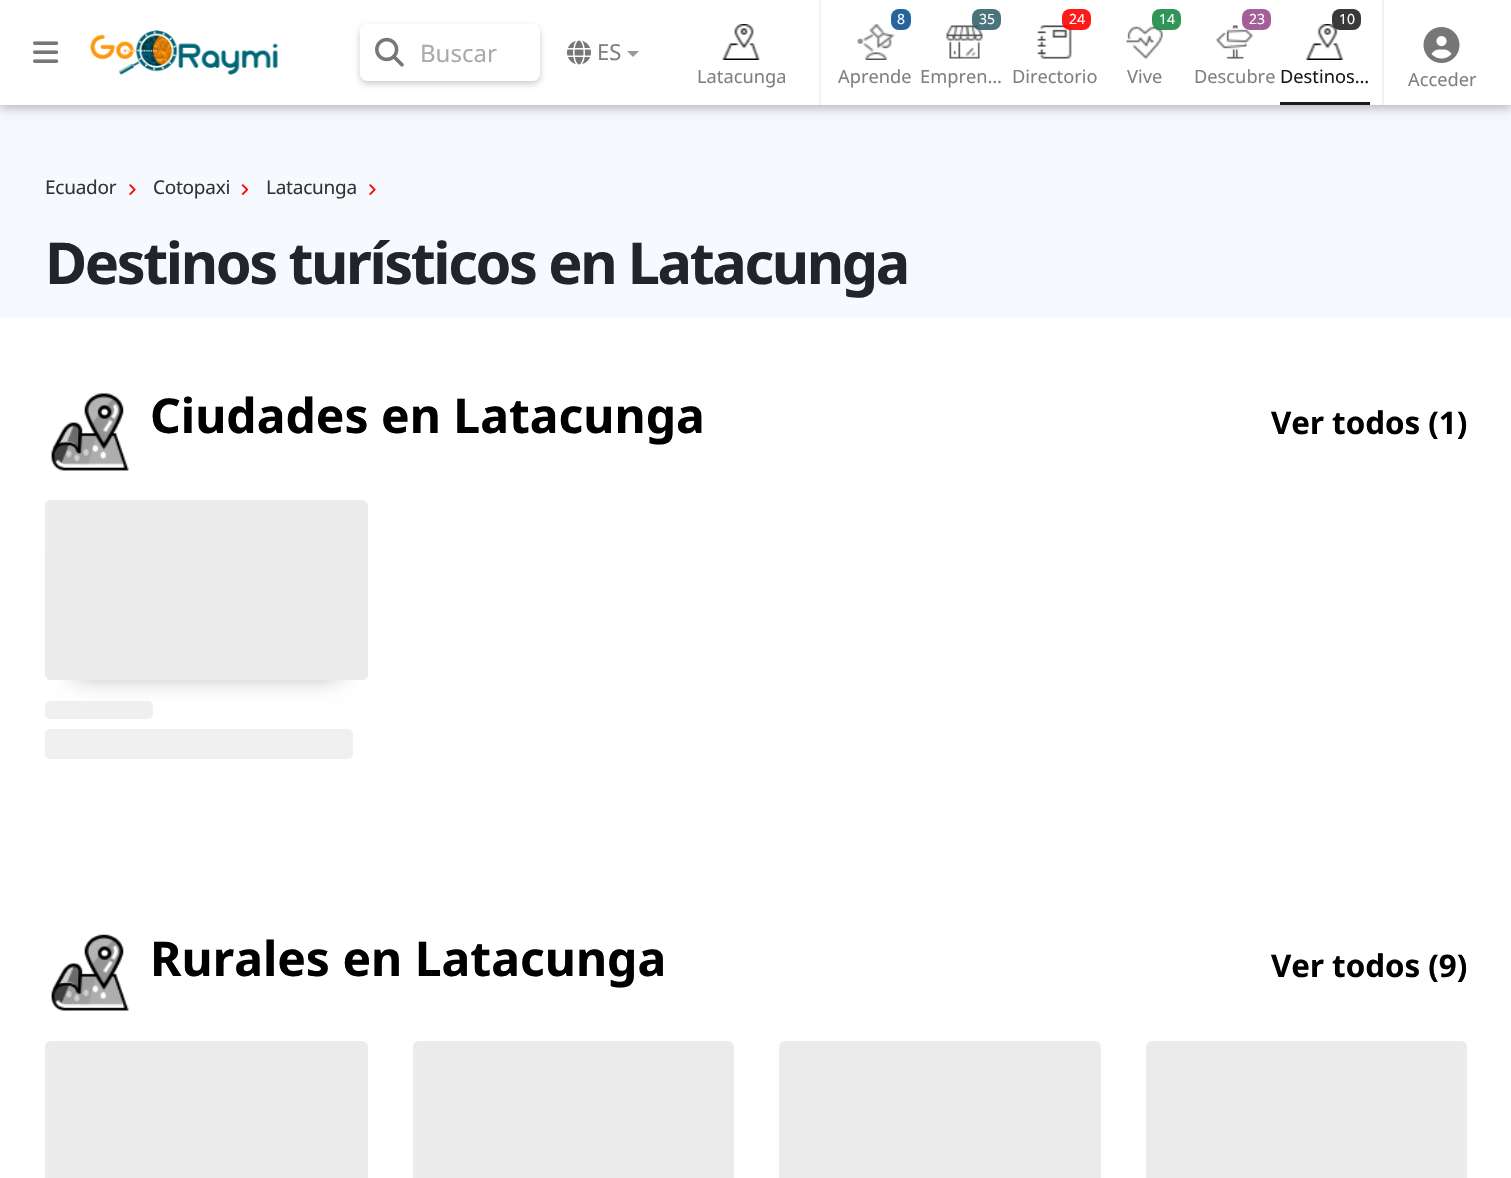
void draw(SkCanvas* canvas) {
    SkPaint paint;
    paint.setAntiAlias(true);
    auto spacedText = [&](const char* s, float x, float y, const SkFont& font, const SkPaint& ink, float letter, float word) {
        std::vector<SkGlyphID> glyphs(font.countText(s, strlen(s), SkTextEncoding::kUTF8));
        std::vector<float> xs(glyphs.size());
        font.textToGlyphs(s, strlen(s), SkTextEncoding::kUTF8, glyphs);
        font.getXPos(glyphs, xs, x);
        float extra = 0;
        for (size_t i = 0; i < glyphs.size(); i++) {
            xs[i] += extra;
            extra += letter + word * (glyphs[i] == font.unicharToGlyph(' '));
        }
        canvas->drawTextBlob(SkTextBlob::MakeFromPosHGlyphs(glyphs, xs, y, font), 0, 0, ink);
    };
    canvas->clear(0xFFF6F9FE);
    paint.setColor(0x1F000000);
    paint.setMaskFilter(SkMaskFilter::MakeBlur(kNormal_SkBlurStyle, 7.5f));
    canvas->drawRect(SkRect::MakeXYWH(0, 3, 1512, 105), paint);
    paint.setMaskFilter(nullptr);
    paint.setColor(0x29000000);
    paint.setMaskFilter(SkMaskFilter::MakeBlur(kNormal_SkBlurStyle, 4));
    canvas->drawRect(SkRect::MakeXYWH(0, 3, 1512, 105), paint);
    paint.setMaskFilter(nullptr);
    paint.setColor(0xFFFFFFFF);
    canvas->drawRect(SkRect::MakeXYWH(0, 0, 1511, 105), paint);
    canvas->drawImageRect(SkImages::DeferredFromEncodedData(SkData::MakeFromFileName("img1.png")), SkRect::MakeXYWH(33, 41, 26, 22), SkSamplingOptions());
    canvas->drawImageRect(SkImages::DeferredFromEncodedData(SkData::MakeFromFileName("img2.png")), SkRect::MakeXYWH(90, 30, 188, 45), SkSamplingOptions());
    canvas->save();
    canvas->clipPath(SkPathBuilder(SkPathFillType::kEvenOdd).moveTo(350, 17).lineTo(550, 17).lineTo(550, 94).lineTo(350, 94).close().moveTo(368, 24).lineTo(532, 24).cubicTo(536.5f, 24, 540, 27.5f, 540, 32).lineTo(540, 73).cubicTo(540, 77.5f, 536.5f, 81, 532, 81).lineTo(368, 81).cubicTo(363.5f, 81, 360, 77.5f, 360, 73).lineTo(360, 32).cubicTo(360, 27.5f, 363.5f, 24, 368, 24).close().detach(), true);
    paint.setColor(0x33000000);
    paint.setMaskFilter(SkMaskFilter::MakeBlur(kNormal_SkBlurStyle, 3));
    canvas->drawRoundRect(SkRect::MakeXYWH(360, 27, 180, 57), 8, 8, paint);
    paint.setMaskFilter(nullptr);
    canvas->restore();
    paint.setColor(0xE6FFFFFF);
    canvas->drawRoundRect(SkRect::MakeXYWH(360, 24, 180, 57), 8, 8, paint);
    canvas->drawImageRect(SkImages::DeferredFromEncodedData(SkData::MakeFromFileName("img3.png")), SkRect::MakeXYWH(375, 37, 29, 30), SkSamplingOptions());
    SkFont font1(fontMgr->matchFamilyStyle("Noto Sans", SkFontStyle::Normal()), 24);
    font1.setSubpixel(true);
    paint.setColor(0xFFAAAAAA);
    canvas->drawString("Buscar", 420, 62, font1, paint);
    canvas->drawImageRect(SkImages::DeferredFromEncodedData(SkData::MakeFromFileName("img4.png")), SkRect::MakeXYWH(567, 40, 24, 25), SkSamplingOptions());
    SkFont font2(fontMgr->matchFamilyStyle("Noto Sans", SkFontStyle::Normal()), 22);
    font2.setSubpixel(true);
    paint.setColor(0xFF808080);
    canvas->drawString("ES", 597, 60, font2, paint);
    paint.setColor(0xFF999999);
    canvas->drawPath(SkPathBuilder().moveTo(627, 51).lineTo(639, 51).lineTo(633, 57).close().detach(), paint);
    paint.setColor(0xFFF2F2F2);
    canvas->drawRect(SkRect::MakeXYWH(819, 0, 2, 105), paint);
    canvas->drawImageRect(SkImages::DeferredFromEncodedData(SkData::MakeFromFileName("img5.png")), SkRect::MakeXYWH(722, 24, 38, 36), SkSamplingOptions());
    SkFont font3(fontMgr->matchFamilyStyle("Noto Sans", SkFontStyle::Normal()), 18.25f);
    font3.setSubpixel(true);
    paint.setColor(0xFF808080);
    canvas->drawString("Latacunga", 697, 83, font3, paint);
    canvas->drawImageRect(SkImages::DeferredFromEncodedData(SkData::MakeFromFileName("img6.png")), SkRect::MakeXYWH(857, 24, 38, 36), SkSamplingOptions());
    paint.setColor(0xFF26649D);
    canvas->drawRoundRect(SkRect::MakeXYWH(891, 9, 20, 21), 8, 8, paint);
    SkFont font4(fontMgr->matchFamilyStyle("Noto Sans", SkFontStyle::Normal()), 14);
    font4.setSubpixel(true);
    paint.setColor(0xFFFFFFFF);
    canvas->drawString("8", 897, 24, font4, paint);
    paint.setColor(0xFF808080);
    canvas->drawString("Aprende", 838, 83, font3, paint);
    canvas->drawImageRect(SkImages::DeferredFromEncodedData(SkData::MakeFromFileName("img7.png")), SkRect::MakeXYWH(946, 25, 37, 34), SkSamplingOptions());
    paint.setColor(0xE636646E);
    canvas->drawRoundRect(SkRect::MakeXYWH(972, 9, 29, 21), 8, 8, paint);
    paint.setColor(0xFFFFFFFF);
    canvas->drawString("35", 979, 24, font4, paint);
    paint.setColor(0xFF808080);
    canvas->drawString("Empren…", 920, 83, font3, paint);
    canvas->drawImageRect(SkImages::DeferredFromEncodedData(SkData::MakeFromFileName("img8.png")), SkRect::MakeXYWH(1037, 25, 35, 34), SkSamplingOptions());
    paint.setColor(0xE6FF0000);
    canvas->drawRoundRect(SkRect::MakeXYWH(1062, 9, 29, 21), 8, 8, paint);
    paint.setColor(0xFFFFFFFF);
    canvas->drawString("24", 1069, 24, font4, paint);
    paint.setColor(0xFF808080);
    canvas->drawString("Directorio", 1012, 83, font3, paint);
    canvas->drawImageRect(SkImages::DeferredFromEncodedData(SkData::MakeFromFileName("img9.png")), SkRect::MakeXYWH(1126, 26, 37, 33), SkSamplingOptions());
    paint.setColor(0xE61A8A44);
    canvas->drawRoundRect(SkRect::MakeXYWH(1152, 9, 29, 21), 8, 8, paint);
    paint.setColor(0xFFFFFFFF);
    canvas->drawString("14", 1159, 24, font4, paint);
    paint.setColor(0xFF808080);
    canvas->drawString("Vive", 1127, 83, font3, paint);
    canvas->drawImageRect(SkImages::DeferredFromEncodedData(SkData::MakeFromFileName("img10.png")), SkRect::MakeXYWH(1216, 25, 37, 34), SkSamplingOptions());
    paint.setColor(0xE69B4E8D);
    canvas->drawRoundRect(SkRect::MakeXYWH(1242, 9, 29, 21), 8, 8, paint);
    paint.setColor(0xFFFFFFFF);
    canvas->drawString("23", 1249, 24, font4, paint);
    paint.setColor(0xFF808080);
    canvas->drawString("Descubre", 1194, 83, font3, paint);
    paint.setColor(0xFF1A1A1A);
    canvas->drawRect(SkRect::MakeXYWH(1280, 102, 90, 3), paint);
    canvas->drawImageRect(SkImages::DeferredFromEncodedData(SkData::MakeFromFileName("img11.png")), SkRect::MakeXYWH(1305, 24, 39, 36), SkSamplingOptions());
    paint.setColor(0xE6232323);
    canvas->drawRoundRect(SkRect::MakeXYWH(1332, 9, 29, 21), 8, 8, paint);
    paint.setColor(0xFFFFFFFF);
    canvas->drawString("10", 1339, 24, font4, paint);
    paint.setColor(0xFF1A1A1A);
    canvas->drawString("Destinos…", 1280, 83, font3, paint);
    paint.setColor(0xFFF2F2F2);
    canvas->drawRect(SkRect::MakeXYWH(1382, 0, 2, 105), paint);
    canvas->drawImageRect(SkImages::DeferredFromEncodedData(SkData::MakeFromFileName("img12.png")), SkRect::MakeXYWH(1423, 27, 37, 36), SkSamplingOptions());
    paint.setColor(0xFF808080);
    canvas->drawString("Acceder", 1408, 86, font3, paint);
    SkFont font5(fontMgr->matchFamilyStyle("Noto Sans", SkFontStyle::Normal()), 19);
    font5.setSubpixel(true);
    paint.setColor(0xFF333333);
    spacedText("Ecuador", 45, 194, font5, paint, -0.25f, 0);
    canvas->drawImageRect(SkImages::DeferredFromEncodedData(SkData::MakeFromFileName("img13.png")), SkRect::MakeXYWH(129, 184, 7, 11), SkSamplingOptions());
    spacedText("Cotopaxi", 153, 194, font5, paint, -0.25f, 0);
    canvas->drawImageRect(SkImages::DeferredFromEncodedData(SkData::MakeFromFileName("img14.png")), SkRect::MakeXYWH(241, 184, 8, 11), SkSamplingOptions());
    spacedText("Latacunga", 266, 194, font5, paint, -0.25f, 0);
    canvas->drawImageRect(SkImages::DeferredFromEncodedData(SkData::MakeFromFileName("img13.png")), SkRect::MakeXYWH(369, 184, 7, 11), SkSamplingOptions());
    SkFont font6(fontMgr->matchFamilyStyle("Noto Sans", SkFontStyle::Bold()), 57.6f);
    font6.setSubpixel(true);
    paint.setColor(0xFF212529);
    spacedText("Destinos turísticos en Latacunga", 45, 284, font6, paint, -2.4f, 0);
    paint.setColor(0xFFFFFFFF);
    canvas->drawRect(SkRect::MakeXYWH(0, 318, 1511, 860), paint);
    canvas->drawImageRect(SkImages::DeferredFromEncodedData(SkData::MakeFromFileName("img15.png")), SkRect::MakeXYWH(51, 393, 78, 78), SkSamplingOptions());
    SkFont font7(fontMgr->matchFamilyStyle("Noto Sans", SkFontStyle::Bold()), 48);
    font7.setSubpixel(true);
    paint.setColor(0xFF000000);
    canvas->drawString("Ciudades en Latacunga", 150, 433, font7, paint);
    SkFont font8(fontMgr->matchFamilyStyle("Noto Sans", SkFontStyle::Bold()), 31.25f);
    font8.setSubpixel(true);
    canvas->drawString("Ver todos (1)", 1271, 434, font8, paint);
    paint.setColor(0xFFF0F0F0);
    canvas->drawRoundRect(SkRect::MakeXYWH(45, 701, 108, 18), 5, 5, paint);
    canvas->save();
    canvas->clipPath(SkPathBuilder(SkPathFillType::kEvenOdd).moveTo(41, 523).lineTo(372, 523).lineTo(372, 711).lineTo(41, 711).close().moveTo(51, 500).lineTo(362, 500).cubicTo(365.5f, 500, 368, 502.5f, 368, 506).lineTo(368, 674).cubicTo(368, 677.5f, 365.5f, 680, 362, 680).lineTo(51, 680).cubicTo(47.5f, 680, 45, 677.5f, 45, 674).lineTo(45, 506).cubicTo(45, 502.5f, 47.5f, 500, 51, 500).close().detach(), true);
    paint.setColor(0x4D000000);
    paint.setMaskFilter(SkMaskFilter::MakeBlur(kNormal_SkBlurStyle, 11));
    canvas->drawRect(SkRect::MakeXYWH(75, 557, 263, 120), paint);
    paint.setMaskFilter(nullptr);
    canvas->restore();
    paint.setColor(0x14000000);
    canvas->drawRoundRect(SkRect::MakeXYWH(45, 500, 323, 180), 6, 6, paint);
    paint.setColor(0xFFF0F0F0);
    canvas->drawRoundRect(SkRect::MakeXYWH(45, 729, 308, 30), 5, 5, paint);
    canvas->drawImageRect(SkImages::DeferredFromEncodedData(SkData::MakeFromFileName("img16.png")), SkRect::MakeXYWH(51, 934, 78, 77), SkSamplingOptions());
    paint.setColor(0xFF000000);
    canvas->drawString("Rurales en Latacunga", 150, 976, font7, paint);
    canvas->drawString("Ver todos (9)", 1271, 977, font8, paint);
    paint.setColor(0xFFEBEBEB);
    canvas->drawRoundRect(SkRect::MakeXYWH(45, 1041, 323, 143), 6, 6, paint);
    canvas->drawRoundRect(SkRect::MakeXYWH(413, 1041, 321, 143), 6, 6, paint);
    canvas->drawRoundRect(SkRect::MakeXYWH(779, 1041, 322, 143), 6, 6, paint);
    canvas->drawRoundRect(SkRect::MakeXYWH(1146, 1041, 321, 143), 6, 6, paint);
}
